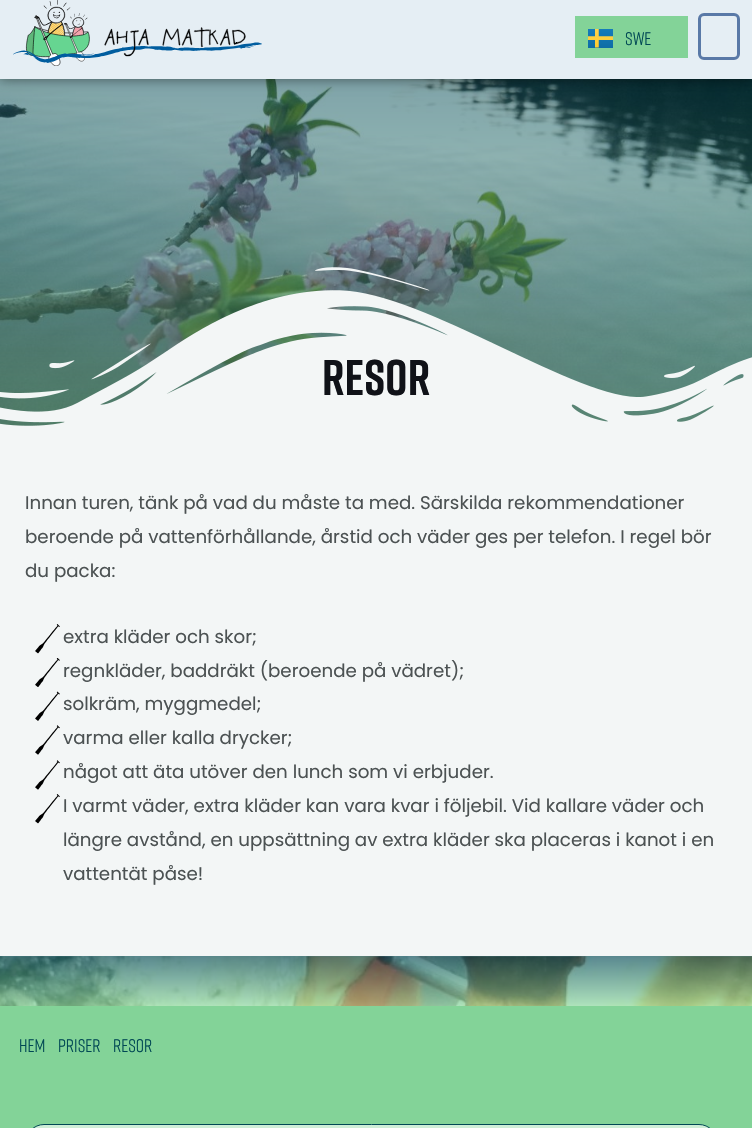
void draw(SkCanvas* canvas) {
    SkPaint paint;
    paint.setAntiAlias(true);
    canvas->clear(0xFFF3F6F6);
    canvas->drawImageRect(SkImages::DeferredFromEncodedData(SkData::MakeFromFileName("img3.png")), SkRect::MakeXYWH(0, 79, 752, 347), SkSamplingOptions());
    {
        const SkColor colors[] = {0x80004854, 0x8083D398};
        const float stops[] = {0, 1};
        const SkPoint ends[] = {{376, 79}, {376, 449}};
        paint.setShader(SkGradientShader::MakeLinear(ends, colors, stops, 2, SkTileMode::kClamp));
        paint.setAlpha(255);
    }
    canvas->drawRect(SkRect::MakeXYWH(0, 79, 752, 347), paint);
    paint.setShader(nullptr);
    paint.setColor(0x80000000);
    paint.setMaskFilter(SkMaskFilter::MakeBlur(kNormal_SkBlurStyle, 6));
    canvas->drawRect(SkRect::MakeXYWH(0, 0, 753, 79), paint);
    paint.setMaskFilter(nullptr);
    paint.setColor(0xFFE5EEF4);
    canvas->drawRect(SkRect::MakeXYWH(0, 0, 752, 79), paint);
    canvas->drawImageRect(SkImages::DeferredFromEncodedData(SkData::MakeFromFileName("img1.png")), SkRect::MakeXYWH(13, 0, 249, 66), SkSamplingOptions());
    paint.setColor(0xFF83D398);
    canvas->drawRect(SkRect::MakeXYWH(575, 16, 113, 42), paint);
    canvas->drawImageRect(SkImages::DeferredFromEncodedData(SkData::MakeFromFileName("img2.png")), SkRect::MakeXYWH(588, 29, 25, 19), SkSamplingOptions());
    SkFont font1(fontMgr->matchFamilyStyle("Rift", SkFontStyle::Normal()), 18.25f);
    font1.setSubpixel(true);
    paint.setColor(0xFF004854);
    canvas->drawString("SWE", 625, 45, font1, paint);
    paint.setStyle(SkPaint::kStroke_Style);
    paint.setStrokeWidth(3);
    paint.setColor(0xFF5979A7);
    canvas->drawRoundRect(SkRect::MakeXYWH(699.5f, 14.5f, 39, 44), 4.5f, 4.5f, paint);
    canvas->drawImageRect(SkImages::DeferredFromEncodedData(SkData::MakeFromFileName("img4.png")), SkRect::MakeXYWH(0, 267, 752, 182), SkSamplingOptions());
    SkFont font2(fontMgr->matchFamilyStyle("Rift", SkFontStyle::Bold()), 50);
    font2.setSubpixel(true);
    paint.setStyle(SkPaint::kFill_Style);
    paint.setColor(0xFF101218);
    canvas->drawString("Resor", 322, 395, font2, paint);
    SkFont font3(fontMgr->matchFamilyStyle("Poppins", SkFontStyle::Normal()), 18.25f);
    font3.setSubpixel(true);
    paint.setColor(0xFF4C5253);
    canvas->drawString("Innan turen, tänk på vad du måste ta med. Särskilda rekommendationer", 25, 509, font3, paint);
    canvas->drawString("beroende på vattenförhållande, årstid och väder ges per telefon. I regel bör", 25, 543, font3, paint);
    canvas->drawString("du packa:", 25, 577, font3, paint);
    canvas->drawImageRect(SkImages::DeferredFromEncodedData(SkData::MakeFromFileName("img5.png")), SkRect::MakeXYWH(35, 624, 25, 30), SkSamplingOptions());
    canvas->drawString("extra kläder och skor;", 63, 643, font3, paint);
    canvas->drawImageRect(SkImages::DeferredFromEncodedData(SkData::MakeFromFileName("img6.png")), SkRect::MakeXYWH(35, 658, 25, 29), SkSamplingOptions());
    canvas->drawString("regnkläder, baddräkt (beroende på vädret);", 63, 677, font3, paint);
    canvas->drawImageRect(SkImages::DeferredFromEncodedData(SkData::MakeFromFileName("img7.png")), SkRect::MakeXYWH(35, 691, 25, 30), SkSamplingOptions());
    canvas->drawString("solkräm, myggmedel;", 63, 710, font3, paint);
    canvas->drawImageRect(SkImages::DeferredFromEncodedData(SkData::MakeFromFileName("img8.png")), SkRect::MakeXYWH(35, 725, 25, 30), SkSamplingOptions());
    canvas->drawString("varma eller kalla drycker;", 63, 744, font3, paint);
    canvas->drawImageRect(SkImages::DeferredFromEncodedData(SkData::MakeFromFileName("img9.png")), SkRect::MakeXYWH(35, 760, 25, 30), SkSamplingOptions());
    canvas->drawString("något att äta utöver den lunch som vi erbjuder.", 63, 778, font3, paint);
    canvas->drawImageRect(SkImages::DeferredFromEncodedData(SkData::MakeFromFileName("img5.png")), SkRect::MakeXYWH(35, 794, 25, 30), SkSamplingOptions());
    canvas->drawString("I varmt väder, extra kläder kan vara kvar i följebil. Vid kallare väder och", 63, 812, font3, paint);
    canvas->drawString("längre avstånd, en uppsättning av extra kläder ska placeras i kanot i en", 63, 846, font3, paint);
    canvas->drawString("vattentät påse!", 63, 880, font3, paint);
    canvas->drawImageRect(SkImages::DeferredFromEncodedData(SkData::MakeFromFileName("img10.png")), SkRect::MakeXYWH(0, 956, 752, 50), SkSamplingOptions());
    {
        const SkColor colors[] = {0xA6004854, 0xA683D398};
        const float stops[] = {0, 1};
        const SkPoint ends[] = {{376, 956}, {376, 1006}};
        paint.setShader(SkGradientShader::MakeLinear(ends, colors, stops, 2, SkTileMode::kClamp));
        paint.setAlpha(255);
    }
    canvas->drawRect(SkRect::MakeXYWH(0, 956, 752, 50), paint);
    paint.setShader(nullptr);
    paint.setColor(0xFF83D398);
    canvas->drawRect(SkRect::MakeXYWH(0, 1006, 752, 122), paint);
    paint.setColor(0xFF004854);
    canvas->drawString("Hem", 19, 1052, font1, paint);
    canvas->drawString("Priser", 58, 1052, font1, paint);
    canvas->drawString("Resor", 113, 1052, font1, paint);
    paint.setColor(0xFFCFEED7);
    canvas->drawPath(SkPathBuilder().moveTo(44, 1124.5f).lineTo(699, 1124.5f).cubicTo(709, 1124.5f, 717.5f, 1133, 717.5f, 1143).lineTo(717.5f, 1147.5f).lineTo(25.5f, 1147.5f).lineTo(25.5f, 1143).cubicTo(25.5f, 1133, 34, 1124.5f, 44, 1124.5f).close().detach(), paint);
    paint.setStyle(SkPaint::kStroke_Style);
    paint.setStrokeWidth(1);
    paint.setColor(0xFF004854);
    canvas->drawPath(SkPathBuilder().moveTo(44, 1124.5f).lineTo(699, 1124.5f).cubicTo(709, 1124.5f, 717.5f, 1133, 717.5f, 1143).lineTo(717.5f, 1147.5f).lineTo(25.5f, 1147.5f).lineTo(25.5f, 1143).cubicTo(25.5f, 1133, 34, 1124.5f, 44, 1124.5f).close().detach(), paint);
}
